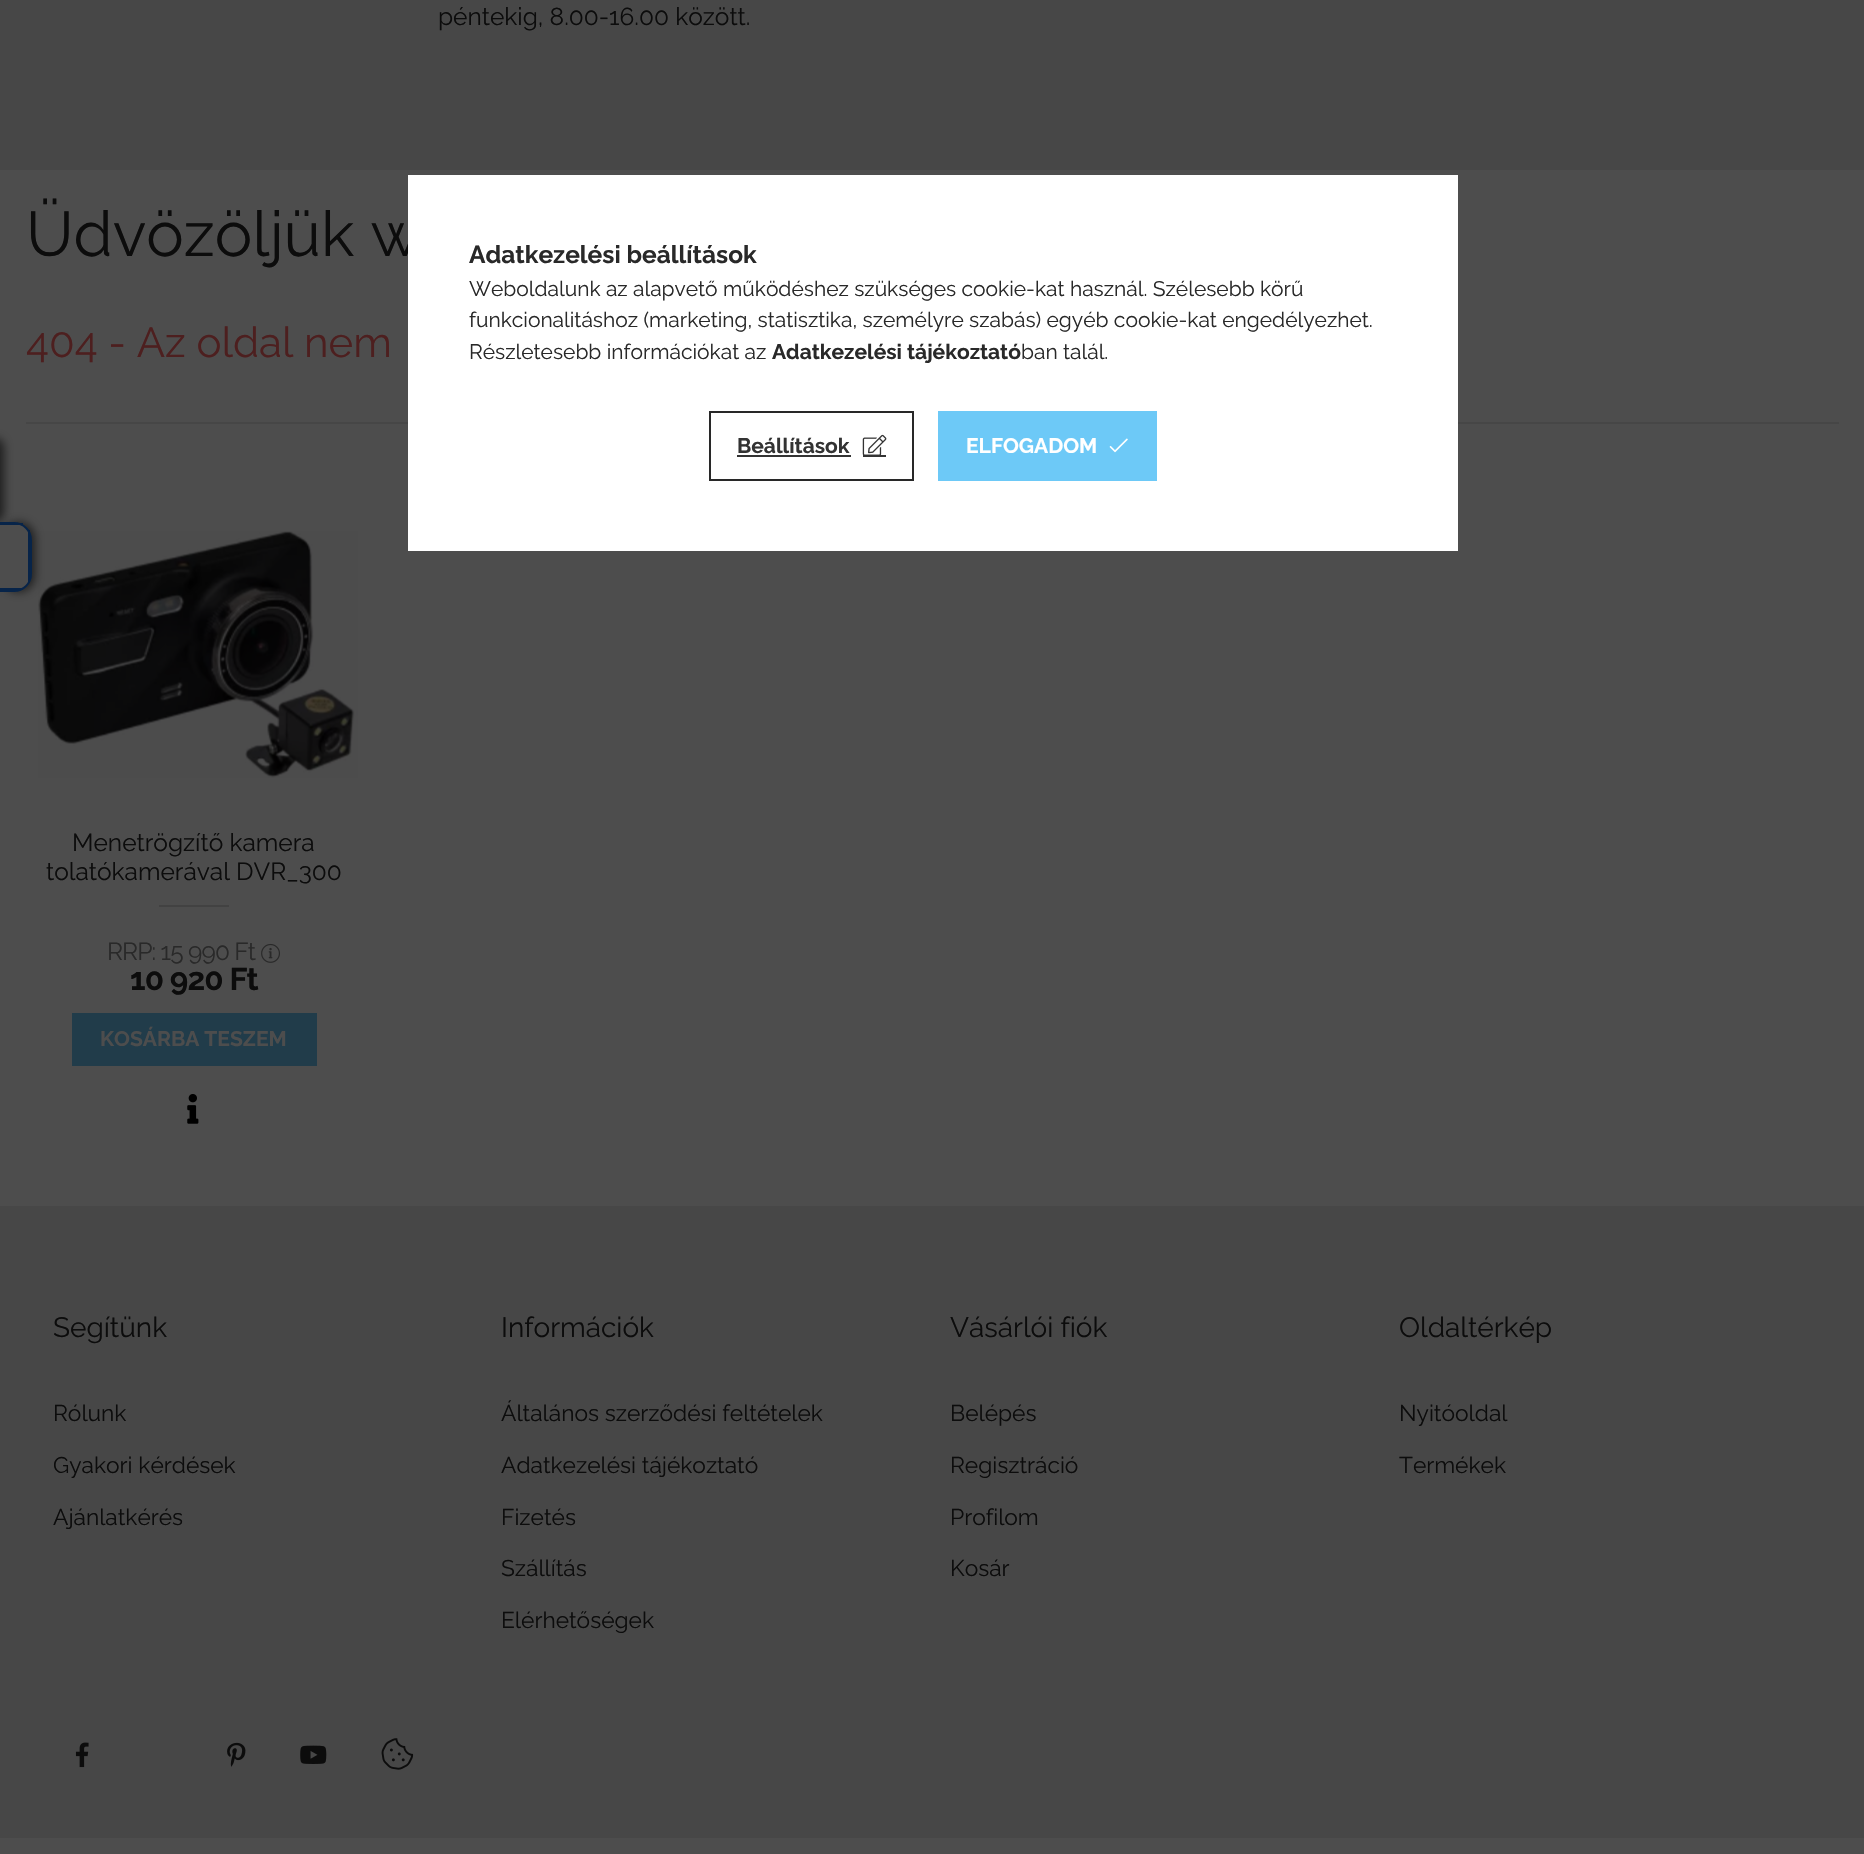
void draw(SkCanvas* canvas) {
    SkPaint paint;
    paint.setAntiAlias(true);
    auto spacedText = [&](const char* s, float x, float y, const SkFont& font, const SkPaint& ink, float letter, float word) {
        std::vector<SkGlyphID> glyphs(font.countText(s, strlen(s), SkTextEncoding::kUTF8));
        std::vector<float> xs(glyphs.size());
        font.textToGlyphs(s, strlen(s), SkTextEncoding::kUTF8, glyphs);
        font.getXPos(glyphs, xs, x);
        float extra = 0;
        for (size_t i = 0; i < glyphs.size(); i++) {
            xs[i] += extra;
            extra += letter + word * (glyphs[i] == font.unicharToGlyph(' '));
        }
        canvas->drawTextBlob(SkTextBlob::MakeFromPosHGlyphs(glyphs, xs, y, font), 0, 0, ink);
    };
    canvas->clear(0xFF4D4D4D);
    paint.setColor(0xFF474747);
    canvas->drawRect(SkRect::MakeXYWH(0, 0, 1864, 170), paint);
    SkFont font1(fontMgr->matchFamilyStyle("Raleway", SkFontStyle::Normal()), 24.5f);
    font1.setSubpixel(true);
    paint.setColor(0xFF0C0C0C);
    canvas->drawString("péntekig, 8.00-16.00 között.", 438, 25, font1, paint);
    SkFont font2(fontMgr->matchFamilyStyle("Raleway", SkFontStyle::Normal()), 63);
    font2.setSubpixel(true);
    canvas->drawString("Üdvözöljük w", 26, 256, font2, paint);
    paint.setColor(0xFF464646);
    canvas->drawRect(SkRect::MakeXYWH(26, 422, 1813, 2), paint);
    SkFont font3(fontMgr->matchFamilyStyle("Raleway", SkFontStyle::Normal()), 42);
    font3.setSubpixel(true);
    paint.setColor(0xFF4D1F1F);
    canvas->drawString("404 - Az oldal nem", 26, 357, font3, paint);
    canvas->drawImageRect(SkImages::DeferredFromEncodedData(SkData::MakeFromFileName("img1.png")), SkRect::MakeXYWH(38, 531, 320, 247), SkSamplingOptions());
    paint.setColor(0xFF0C0C0C);
    canvas->drawString("Menetrögzítő kamera", 72, 851, font1, paint);
    canvas->drawString("tolatókamerával DVR_300", 46, 880, font1, paint);
    paint.setColor(0xFF424242);
    canvas->drawRect(SkRect::MakeXYWH(159, 905, 70, 2), paint);
    paint.setColor(0xFF292929);
    spacedText("RRP: 15 990 Ft", 107, 960, font1, paint, -0.9f, 0);
    canvas->drawImageRect(SkImages::DeferredFromEncodedData(SkData::MakeFromFileName("img2.png")), SkRect::MakeXYWH(261, 943, 19, 20), SkSamplingOptions());
    SkFont font4(fontMgr->matchFamilyStyle("Raleway", SkFontStyle::Bold()), 31.5f);
    font4.setSubpixel(true);
    paint.setColor(0xFF0C0C0C);
    spacedText("10 920 Ft", 130, 990, font4, paint, -0.9f, 0);
    paint.setColor(0xFF213C4A);
    canvas->drawRect(SkRect::MakeXYWH(72, 1013, 245, 53), paint);
    SkFont font5(fontMgr->matchFamilyStyle("Raleway", SkFontStyle::Bold()), 21);
    font5.setSubpixel(true);
    paint.setColor(0xFF4D4D4D);
    canvas->drawString("KOSÁRBA TESZEM", 100, 1046, font5, paint);
    canvas->drawImageRect(SkImages::DeferredFromEncodedData(SkData::MakeFromFileName("img3.png")), SkRect::MakeXYWH(187, 1094, 12, 30), SkSamplingOptions());
    paint.setColor(0xFF474747);
    canvas->drawRect(SkRect::MakeXYWH(0, 1206, 1864, 632), paint);
    SkFont font6(fontMgr->matchFamilyStyle("Raleway", SkFontStyle::Normal()), 28);
    font6.setSubpixel(true);
    paint.setColor(0xFF0C0C0C);
    canvas->drawString("Segítünk", 53, 1337, font6, paint);
    SkFont font7(fontMgr->matchFamilyStyle("Raleway", SkFontStyle::Normal()), 22.75f);
    font7.setSubpixel(true);
    canvas->drawString("Rólunk", 53, 1421, font7, paint);
    canvas->drawString("Gyakori kérdések", 53, 1473, font7, paint);
    canvas->drawString("Ajánlatkérés", 53, 1525, font7, paint);
    canvas->drawString("Információk", 501, 1337, font6, paint);
    canvas->drawString("Általános szerződési feltételek", 501, 1421, font7, paint);
    canvas->drawString("Adatkezelési tájékoztató", 501, 1473, font7, paint);
    canvas->drawString("Fizetés", 501, 1525, font7, paint);
    canvas->drawString("Szállítás", 501, 1576, font7, paint);
    canvas->drawString("Elérhetőségek", 501, 1628, font7, paint);
    canvas->drawString("Vásárlói fiók", 950, 1337, font6, paint);
    canvas->drawString("Belépés", 950, 1421, font7, paint);
    canvas->drawString("Regisztráció", 950, 1473, font7, paint);
    canvas->drawString("Profilom", 950, 1525, font7, paint);
    canvas->drawString("Kosár", 950, 1576, font7, paint);
    canvas->drawString("Oldaltérkép", 1399, 1337, font6, paint);
    canvas->drawString("Nyitóoldal", 1399, 1421, font7, paint);
    canvas->drawString("Termékek", 1399, 1473, font7, paint);
    canvas->drawImageRect(SkImages::DeferredFromEncodedData(SkData::MakeFromFileName("img4.png")), SkRect::MakeXYWH(75, 1742, 14, 26), SkSamplingOptions());
    canvas->drawImageRect(SkImages::DeferredFromEncodedData(SkData::MakeFromFileName("img5.png")), SkRect::MakeXYWH(227, 1742, 19, 25), SkSamplingOptions());
    canvas->drawImageRect(SkImages::DeferredFromEncodedData(SkData::MakeFromFileName("img6.png")), SkRect::MakeXYWH(300, 1745, 27, 19), SkSamplingOptions());
    canvas->drawImageRect(SkImages::DeferredFromEncodedData(SkData::MakeFromFileName("img7.png")), SkRect::MakeXYWH(381, 1738, 33, 32), SkSamplingOptions());
    paint.setColor(0xFFFFFFFF);
    canvas->drawRect(SkRect::MakeXYWH(408, 175, 1050, 376), paint);
    SkFont font8(fontMgr->matchFamilyStyle("Raleway", SkFontStyle::Bold()), 24.5f);
    font8.setSubpixel(true);
    paint.setColor(0xFF292929);
    canvas->drawString("Adatkezelési beállítások", 469, 263, font8, paint);
    SkFont font9(fontMgr->matchFamilyStyle("Raleway", SkFontStyle::Normal()), 21);
    font9.setSubpixel(true);
    canvas->drawString("Weboldalunk az alapvető működéshez szükséges cookie-kat használ. Szélesebb körű", 469, 296, font9, paint);
    canvas->drawString("funkcionalitáshoz (marketing, statisztika, személyre szabás) egyéb cookie-kat engedélyezhet.", 469, 327, font9, paint);
    canvas->drawString("Részletesebb információkat az", 469, 359, font9, paint);
    canvas->drawString("Adatkezelési tájékoztató", 772, 359, font5, paint);
    canvas->drawString("ban talál.", 1021, 359, font9, paint);
    paint.setStyle(SkPaint::kStroke_Style);
    paint.setStrokeWidth(2);
    paint.setColor(0xFF282828);
    canvas->drawRect(SkRect::MakeXYWH(710, 412, 203, 68), paint);
    paint.setStyle(SkPaint::kFill_Style);
    paint.setColor(0xFF333333);
    canvas->drawString("Beállítások", 737, 453, font5, paint);
    canvas->drawRect(SkRect::MakeXYWH(737, 455, 114, 2), paint);
    canvas->drawImageRect(SkImages::DeferredFromEncodedData(SkData::MakeFromFileName("img8.png")), SkRect::MakeXYWH(862, 434, 25, 21), SkSamplingOptions());
    canvas->drawRect(SkRect::MakeXYWH(863, 455, 23, 2), paint);
    paint.setColor(0xFF6DC9F7);
    canvas->drawRect(SkRect::MakeXYWH(938, 411, 219, 70), paint);
    paint.setColor(0xFFFFFFFF);
    canvas->drawString("ELFOGADOM", 966, 453, font5, paint);
    canvas->drawImageRect(SkImages::DeferredFromEncodedData(SkData::MakeFromFileName("img9.png")), SkRect::MakeXYWH(1109, 438, 19, 15), SkSamplingOptions());
    paint.setColor(0x99000000);
    paint.setMaskFilter(SkMaskFilter::MakeBlur(kNormal_SkBlurStyle, 5));
    canvas->drawRoundRect(SkRect::MakeXYWH(-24, 438, 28, 84), 9, 9, paint);
    paint.setMaskFilter(nullptr);
    paint.setMaskFilter(SkMaskFilter::MakeBlur(kNormal_SkBlurStyle, 5));
    canvas->drawRoundRect(SkRect::MakeXYWH(2, 522, 33, 70), 18, 18, paint);
    paint.setMaskFilter(nullptr);
    paint.setColor(0xFF4D4D4D);
    canvas->drawPath(SkPathBuilder().moveTo(-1, 523).lineTo(14, 523).cubicTo(23.5f, 523, 31, 530.5f, 31, 540).lineTo(31, 574).cubicTo(31, 583.5f, 23.5f, 591, 14, 591).lineTo(-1, 591).close().detach(), paint);
    paint.setStyle(SkPaint::kStroke_Style);
    paint.setColor(0xFF072449);
    canvas->drawPath(SkPathBuilder().moveTo(-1, 523).lineTo(14, 523).cubicTo(23.5f, 523, 31, 530.5f, 31, 540).lineTo(31, 574).cubicTo(31, 583.5f, 23.5f, 591, 14, 591).lineTo(-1, 591).close().detach(), paint);
    paint.setStyle(SkPaint::kFill_Style);
    canvas->drawRect(SkRect::MakeXYWH(0, 523, 23, 2), paint);
    canvas->drawRect(SkRect::MakeXYWH(28, 530, 2, 53), paint);
    canvas->drawRect(SkRect::MakeXYWH(0, 588, 23, 2), paint);
}
